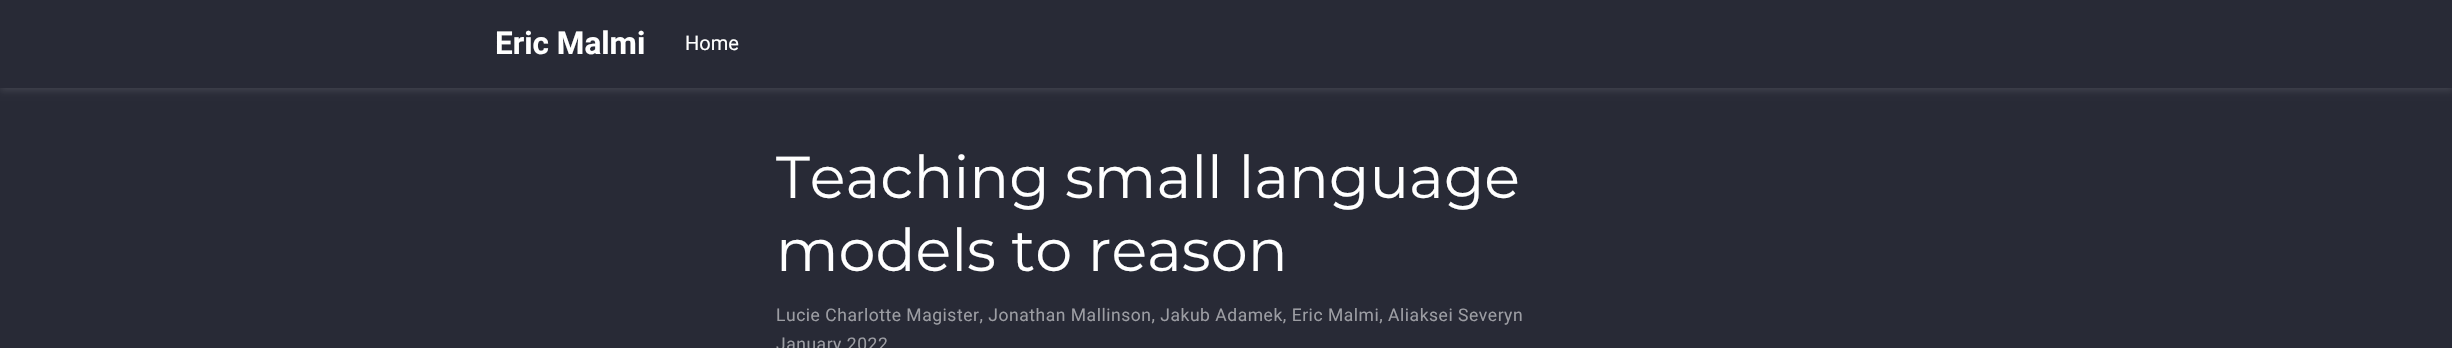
void draw(SkCanvas* canvas) {
    SkPaint paint;
    paint.setAntiAlias(true);
    auto spacedText = [&](const char* s, float x, float y, const SkFont& font, const SkPaint& ink, float letter, float word) {
        std::vector<SkGlyphID> glyphs(font.countText(s, strlen(s), SkTextEncoding::kUTF8));
        std::vector<float> xs(glyphs.size());
        font.textToGlyphs(s, strlen(s), SkTextEncoding::kUTF8, glyphs);
        font.getXPos(glyphs, xs, x);
        float extra = 0;
        for (size_t i = 0; i < glyphs.size(); i++) {
            xs[i] += extra;
            extra += letter + word * (glyphs[i] == font.unicharToGlyph(' '));
        }
        canvas->drawTextBlob(SkTextBlob::MakeFromPosHGlyphs(glyphs, xs, y, font), 0, 0, ink);
    };
    canvas->clear(0xFF282A36);
    paint.setColor(0x1CFFFFFF);
    paint.setMaskFilter(SkMaskFilter::MakeBlur(kNormal_SkBlurStyle, 3.5f));
    canvas->drawRect(SkRect::MakeXYWH(0, 4, 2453, 87), paint);
    paint.setMaskFilter(nullptr);
    paint.setColor(0xFF282A36);
    canvas->drawRect(SkRect::MakeXYWH(0, 0, 2452, 88), paint);
    SkFont font1(fontMgr->matchFamilyStyle("Roboto", SkFontStyle::Bold()), 31.5f);
    font1.setSubpixel(true);
    paint.setColor(0xFFFFFFFF);
    canvas->drawString("Eric Malmi", 495, 54, font1, paint);
    SkFont font2(fontMgr->matchFamilyStyle("Roboto", SkFontStyle::Normal()), 20);
    font2.setSubpixel(true);
    canvas->drawString("Home", 685, 50, font2, paint);
    SkFont font3(fontMgr->matchFamilyStyle("Montserrat", SkFontStyle::Normal()), 59);
    font3.setSubpixel(true);
    canvas->drawString("Teaching small language", 776, 198, font3, paint);
    canvas->drawString("models to reason", 776, 271, font3, paint);
    SkFont font4(fontMgr->matchFamilyStyle("Roboto", SkFontStyle::Normal()), 17.5f);
    font4.setSubpixel(true);
    paint.setColor(0xFF9C9DA3);
    spacedText("Lucie Charlotte Magister, Jonathan Mallinson, Jakub Adamek, Eric Malmi, Aliaksei Severyn", 776, 321, font4, paint, 0.53f, 0);
    spacedText("January 2022", 776, 350, font4, paint, 0.53f, 0);
}
